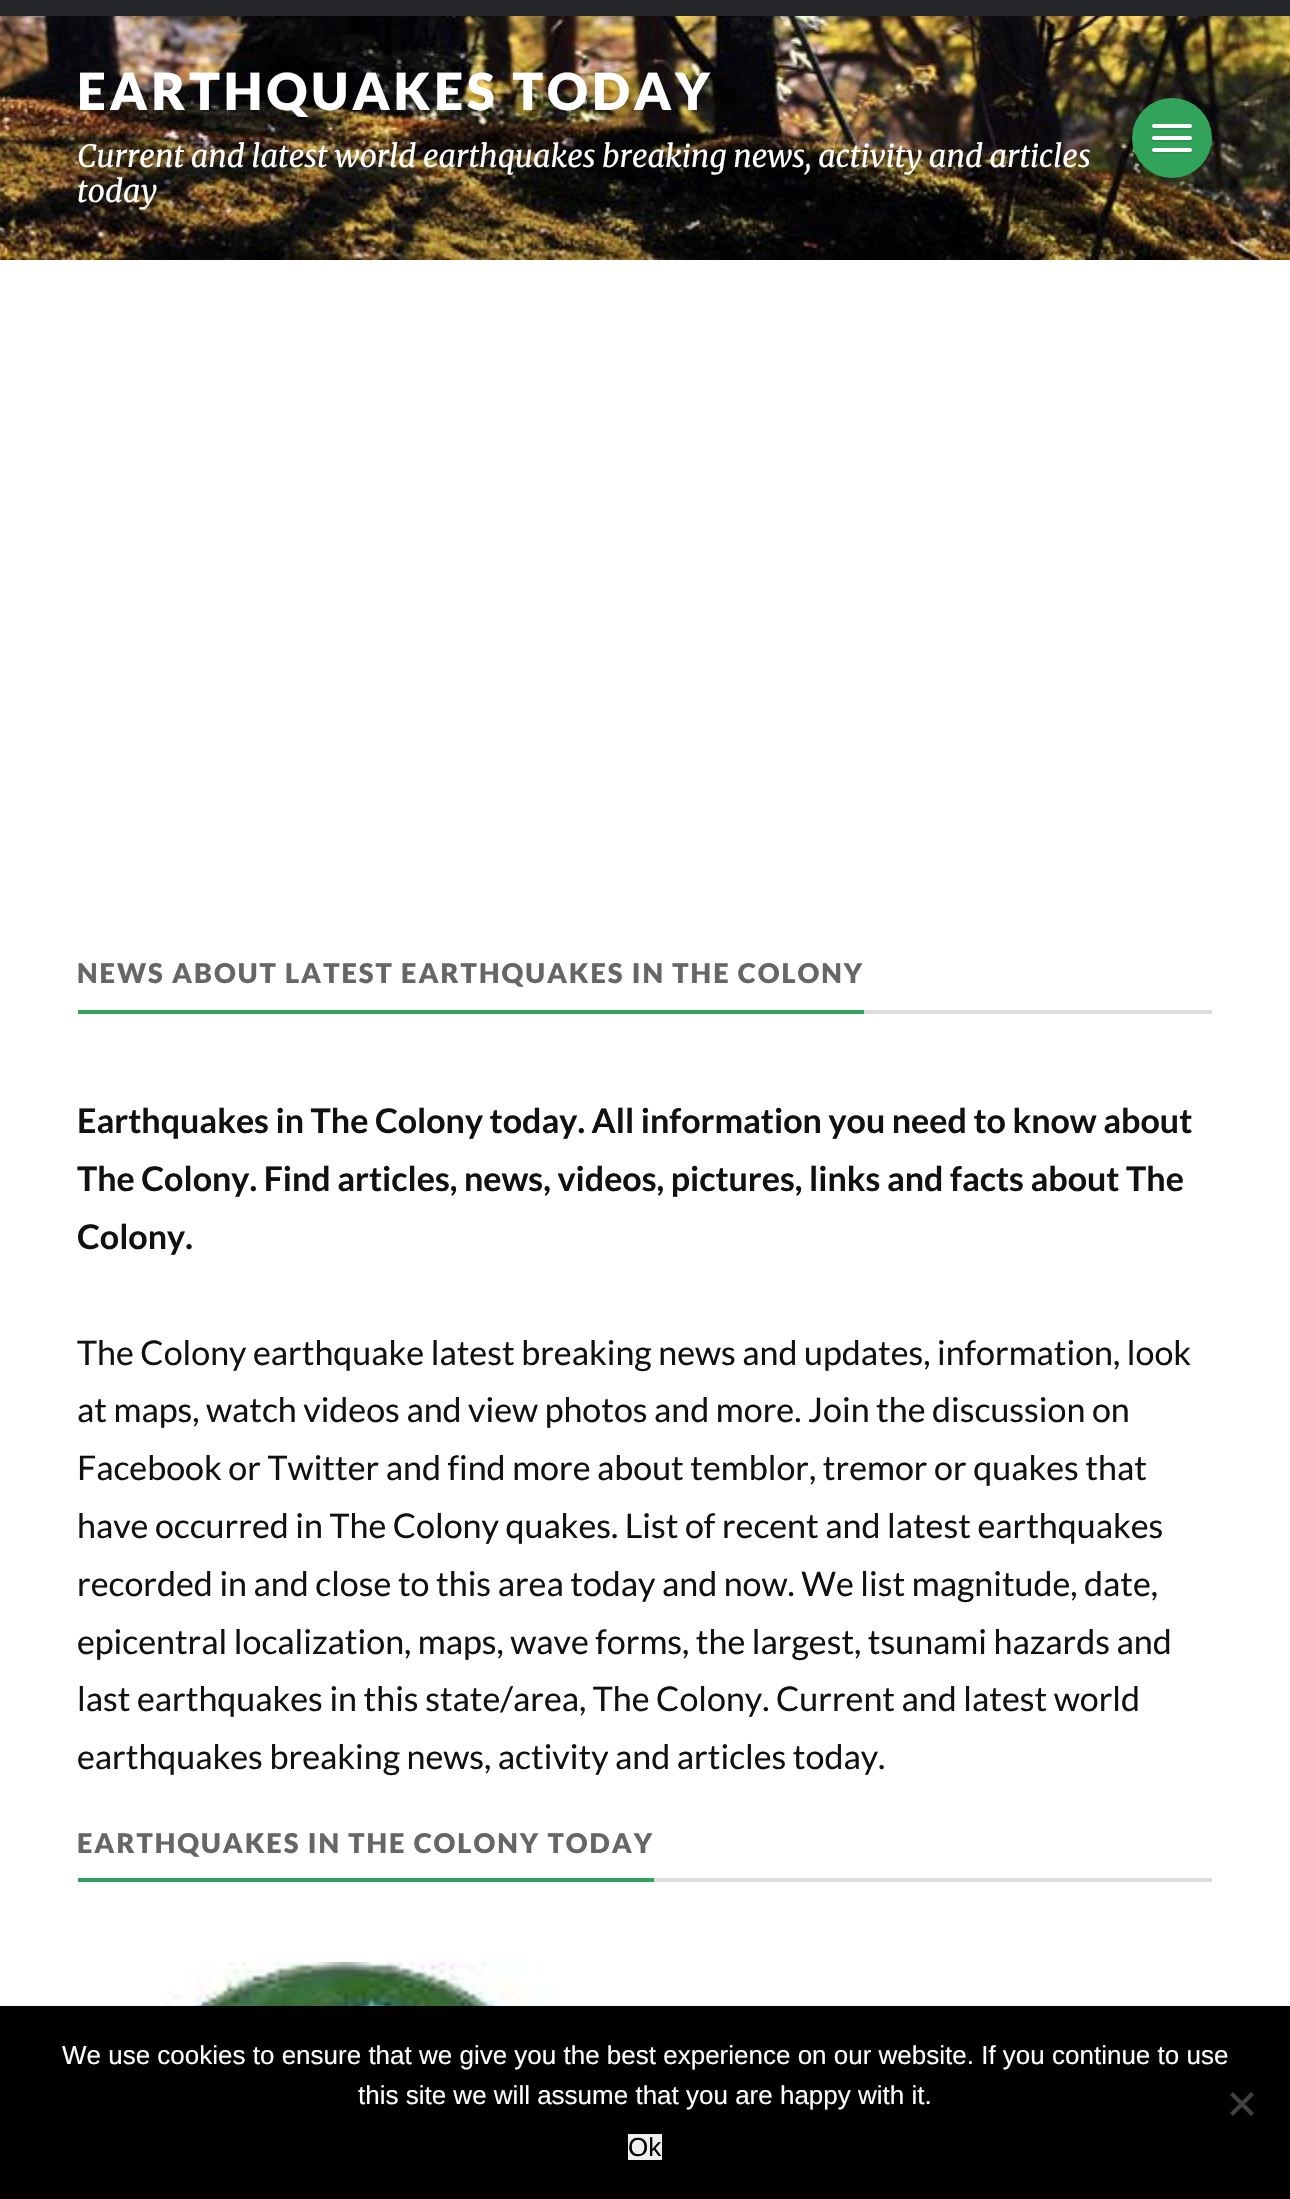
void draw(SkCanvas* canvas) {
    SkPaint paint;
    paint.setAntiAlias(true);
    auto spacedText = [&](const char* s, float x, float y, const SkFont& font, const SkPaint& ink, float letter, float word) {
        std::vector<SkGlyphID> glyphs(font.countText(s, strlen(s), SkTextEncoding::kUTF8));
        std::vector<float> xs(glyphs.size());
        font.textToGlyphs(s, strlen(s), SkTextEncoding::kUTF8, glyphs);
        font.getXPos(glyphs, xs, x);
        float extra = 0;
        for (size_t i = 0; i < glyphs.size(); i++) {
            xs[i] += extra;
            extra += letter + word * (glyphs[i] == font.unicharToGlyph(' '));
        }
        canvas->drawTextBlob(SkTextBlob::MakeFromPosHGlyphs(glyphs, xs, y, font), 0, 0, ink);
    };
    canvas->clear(0xFFFFFFFF);
    canvas->drawImageRect(SkImages::DeferredFromEncodedData(SkData::MakeFromFileName("img1.png")), SkRect::MakeXYWH(0, 16, 1290, 244), SkSamplingOptions());
    paint.setColor(0xFF26272B);
    canvas->drawRect(SkRect::MakeXYWH(0, 0, 1290, 16), paint);
    SkFont font1(fontMgr->matchFamilyStyle("Lato", SkFontStyle(900, SkFontStyle::kNormal_Width, SkFontStyle::kUpright_Slant)), 51);
    font1.setSubpixel(true);
    paint.setColor(0xFFFFFFFF);
    spacedText("EARTHQUAKES TODAY", 77, 110, font1, paint, 4, 0);
    paint.setColor(0x1A000000);
    canvas->drawPath(SkPathBuilder().moveTo(1212, 140).cubicTo(1211, 161, 1193, 178, 1172, 178).cubicTo(1151, 178, 1133, 161, 1132, 140).cubicTo(1130, 180, 1183, 198, 1205, 164).cubicTo(1210, 157, 1212, 149, 1212, 140).close().detach(), paint);
    paint.setColor(0xFF32A35A);
    canvas->drawCircle(1172, 138, 40, paint);
    paint.setColor(0xFF2D9351);
    canvas->drawPath(SkPathBuilder().moveTo(1152, 127).cubicTo(1150, 130, 1156, 130, 1160, 130).lineTo(1184, 130).cubicTo(1188, 130, 1194, 130, 1192, 127).lineTo(1190, 128).lineTo(1154, 128).close().detach(), paint);
    paint.setColor(0xFFFFFFFF);
    canvas->drawRoundRect(SkRect::MakeXYWH(1152, 124, 40, 4), 2, 2, paint);
    paint.setColor(0xFF2D9351);
    canvas->drawPath(SkPathBuilder().moveTo(1152, 139).cubicTo(1150, 142, 1156, 142, 1160, 142).lineTo(1184, 142).cubicTo(1188, 142, 1194, 142, 1192, 139).lineTo(1190, 140).lineTo(1154, 140).close().detach(), paint);
    paint.setColor(0xFFFFFFFF);
    canvas->drawRoundRect(SkRect::MakeXYWH(1152, 136, 40, 4), 2, 2, paint);
    paint.setColor(0xFF2D9351);
    canvas->drawPath(SkPathBuilder().moveTo(1152, 151).cubicTo(1150, 154, 1156, 154, 1160, 154).lineTo(1184, 154).cubicTo(1188, 154, 1194, 154, 1192, 151).lineTo(1190, 152).lineTo(1154, 152).close().detach(), paint);
    paint.setColor(0xFFFFFFFF);
    canvas->drawRoundRect(SkRect::MakeXYWH(1152, 148, 40, 4), 2, 2, paint);
    SkFont font2(fontMgr->matchFamilyStyle("Merriweather", SkFontStyle(300, SkFontStyle::kNormal_Width, SkFontStyle::kItalic_Slant)), 30.6f);
    font2.setSubpixel(true);
    canvas->drawString("Current and latest world earthquakes breaking news, activity and articles", 77, 167, font2, paint);
    canvas->drawString("today", 77, 202, font2, paint);
    paint.setColor(0xFFDDDDDD);
    canvas->drawRect(SkRect::MakeXYWH(864, 1010, 348, 4), paint);
    paint.setColor(0xFF32A35A);
    canvas->drawRect(SkRect::MakeXYWH(78, 1010, 786, 4), paint);
    SkFont font3(fontMgr->matchFamilyStyle("Lato", SkFontStyle(900, SkFontStyle::kNormal_Width, SkFontStyle::kUpright_Slant)), 27.2f);
    font3.setSubpixel(true);
    paint.setColor(0xFF666666);
    spacedText("NEWS ABOUT LATEST EARTHQUAKES IN THE COLONY", 77, 983, font3, paint, 2, 0);
    SkFont font4(fontMgr->matchFamilyStyle("Lato", SkFontStyle::Bold()), 34);
    font4.setSubpixel(true);
    paint.setColor(0xFF111111);
    canvas->drawString("Earthquakes in The Colony today. All information you need to know about", 77, 1133, font4, paint);
    canvas->drawString("The Colony. Find articles, news, videos, pictures, links and facts about The", 77, 1191, font4, paint);
    canvas->drawString("Colony.", 77, 1249, font4, paint);
    SkFont font5(fontMgr->matchFamilyStyle("Lato", SkFontStyle::Normal()), 34);
    font5.setSubpixel(true);
    canvas->drawString("The Colony earthquake latest breaking news and updates, information, look", 77, 1365, font5, paint);
    canvas->drawString("at maps, watch videos and view photos and more. Join the discussion on", 77, 1422, font5, paint);
    canvas->drawString("Facebook or Twitter and find more about temblor, tremor or quakes that", 77, 1480, font5, paint);
    canvas->drawString("have occurred in The Colony quakes. List of recent and latest earthquakes", 77, 1538, font5, paint);
    canvas->drawString("recorded in and close to this area today and now. We list magnitude, date,", 77, 1596, font5, paint);
    canvas->drawString("epicentral localization, maps, wave forms, the largest, tsunami hazards and", 77, 1654, font5, paint);
    canvas->drawString("last earthquakes in this state/area, The Colony. Current and latest world", 77, 1711, font5, paint);
    canvas->drawString("earthquakes breaking news, activity and articles today.", 77, 1769, font5, paint);
    paint.setColor(0xFFDDDDDD);
    canvas->drawRect(SkRect::MakeXYWH(654, 1878, 558, 4), paint);
    paint.setColor(0xFF32A35A);
    canvas->drawRect(SkRect::MakeXYWH(78, 1878, 576, 4), paint);
    paint.setColor(0xFF666666);
    spacedText("EARTHQUAKES IN THE COLONY TODAY", 77, 1853, font3, paint, 2, 0);
    canvas->drawImageRect(SkImages::DeferredFromEncodedData(SkData::MakeFromFileName("img2.png")), SkRect::MakeXYWH(78, 1962, 532, 44), SkSamplingOptions());
    paint.setColor(0xFF000000);
    canvas->drawRect(SkRect::MakeXYWH(0, 2006, 1290, 193), paint);
    SkFont font6(fontMgr->matchFamilyStyle("Liberation Sans", SkFontStyle::Normal()), 26);
    font6.setSubpixel(true);
    paint.setColor(0xFFFFFFFF);
    canvas->drawString("We use cookies to ensure that we give you the best experience on our website. If you continue to use", 62, 2064, font6, paint);
    canvas->drawString("this site we will assume that you are happy with it.", 358, 2104, font6, paint);
    paint.setColor(0xFF404040);
    canvas->drawPath(SkPathBuilder().moveTo(1251, 2092).lineTo(1254, 2095).lineTo(1233, 2116).lineTo(1230, 2113).close().detach(), paint);
    canvas->drawPath(SkPathBuilder().moveTo(1230, 2095).lineTo(1233, 2092).lineTo(1254, 2113).lineTo(1251, 2116).close().detach(), paint);
    paint.setColor(0xFFEFEFEF);
    canvas->drawRect(SkRect::MakeXYWH(628, 2134, 34, 26), paint);
    paint.setColor(0xFF000000);
    canvas->drawString("Ok", 628, 2156, font6, paint);
}
